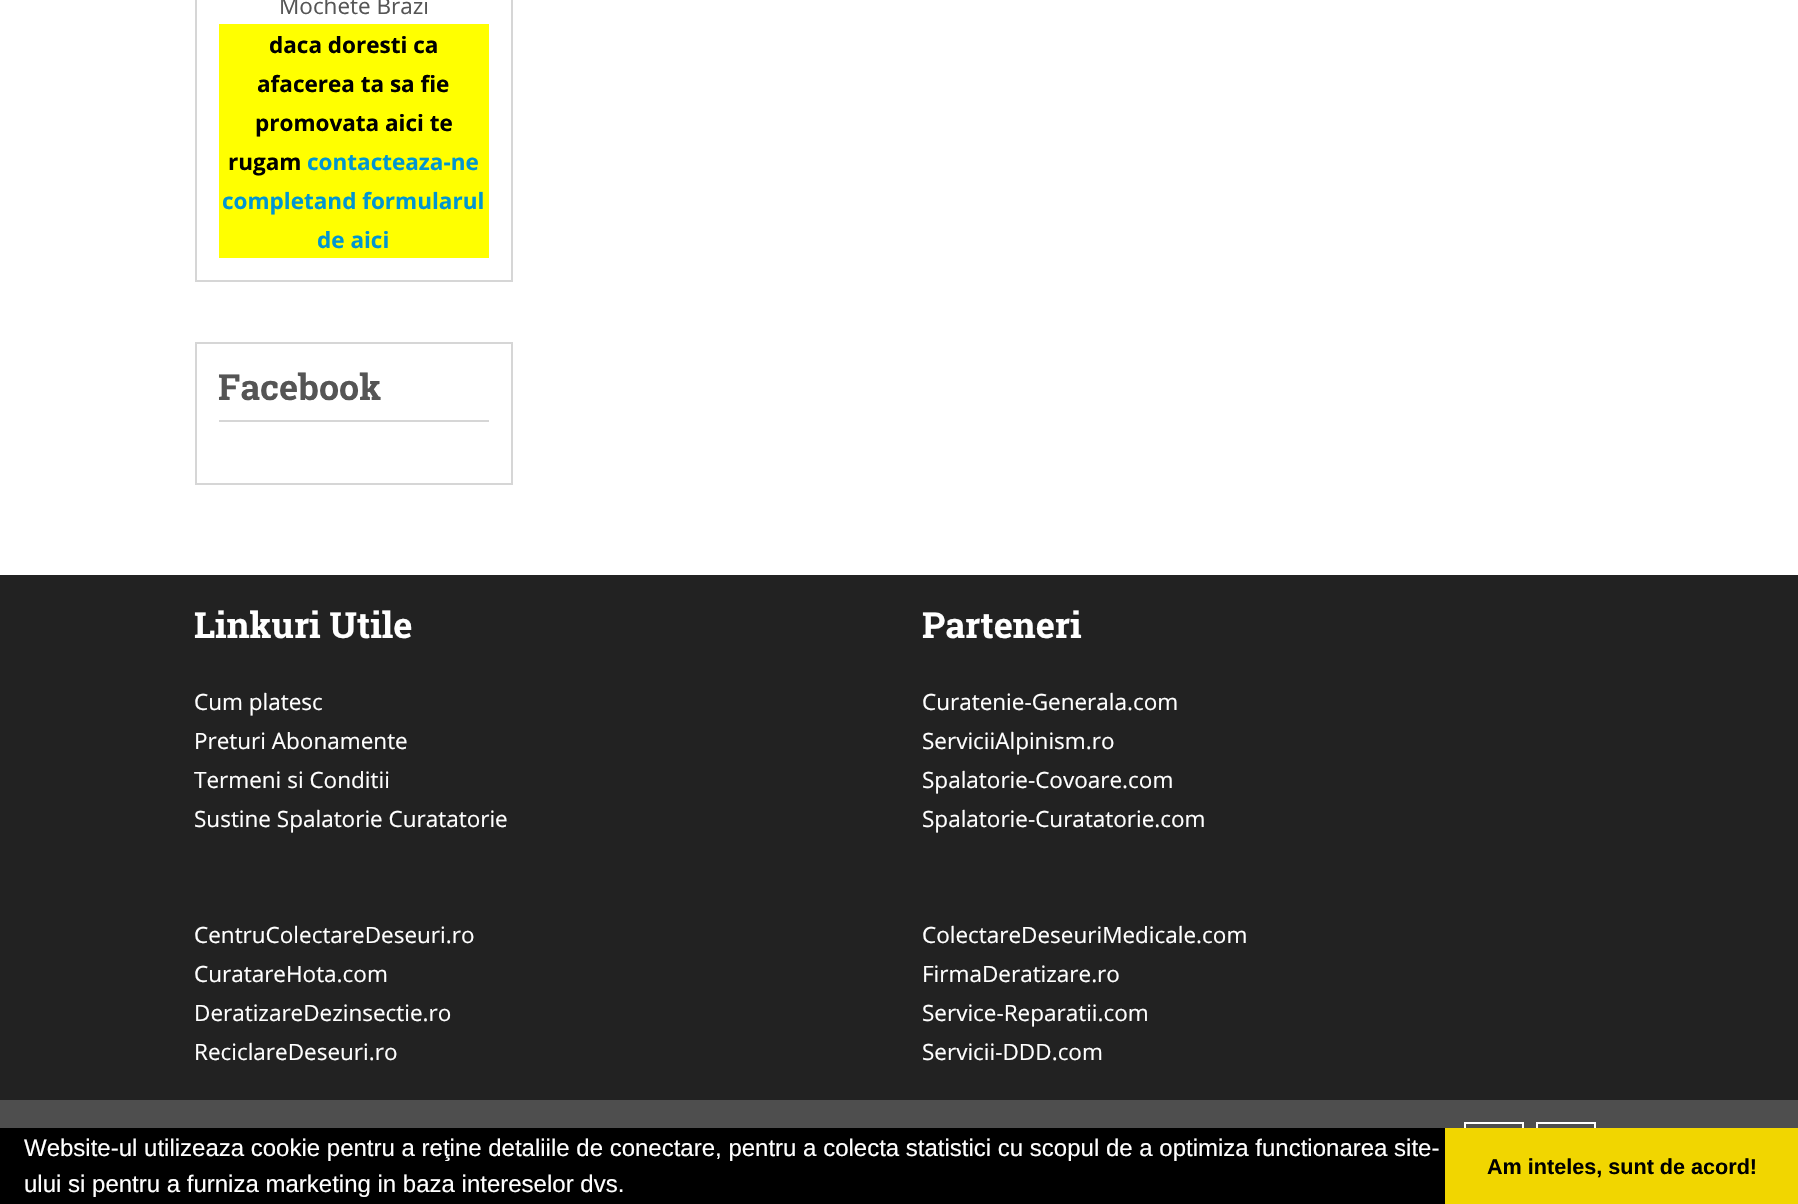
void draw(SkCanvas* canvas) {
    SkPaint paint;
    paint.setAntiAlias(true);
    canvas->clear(0xFFFFFFFF);
    paint.setStyle(SkPaint::kStroke_Style);
    paint.setStrokeWidth(2);
    paint.setColor(0xFFD6D6D6);
    canvas->drawRect(SkRect::MakeXYWH(196, -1, 316, 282), paint);
    SkFont font1(fontMgr->matchFamilyStyle("Open Sans", SkFontStyle::Normal()), 22.5f);
    font1.setSubpixel(true);
    paint.setStyle(SkPaint::kFill_Style);
    paint.setColor(0xFF555555);
    canvas->drawString("Mochete Brazi", 279, 14, font1, paint);
    paint.setColor(0xFFFFFF00);
    canvas->drawRect(SkRect::MakeXYWH(219, 24, 270, 234), paint);
    SkFont font2(fontMgr->matchFamilyStyle("Open Sans", SkFontStyle::Bold()), 22.5f);
    font2.setSubpixel(true);
    paint.setColor(0xFF000000);
    canvas->drawString("daca doresti ca", 269, 53, font2, paint);
    canvas->drawString("afacerea ta sa fie", 257, 92, font2, paint);
    canvas->drawString("promovata aici te", 255, 131, font2, paint);
    canvas->drawString("rugam", 228, 170, font2, paint);
    paint.setColor(0xFF0195D1);
    canvas->drawString("contacteaza-ne", 307, 170, font2, paint);
    canvas->drawString("completand formularul", 222, 209, font2, paint);
    canvas->drawString("de aici", 317, 248, font2, paint);
    paint.setStyle(SkPaint::kStroke_Style);
    paint.setColor(0xFFD6D6D6);
    canvas->drawRect(SkRect::MakeXYWH(196, 343, 316, 141), paint);
    paint.setStyle(SkPaint::kFill_Style);
    canvas->drawRect(SkRect::MakeXYWH(219, 420, 270, 2), paint);
    SkFont font3(fontMgr->matchFamilyStyle("Roboto Slab", SkFontStyle::Bold()), 36);
    font3.setSubpixel(true);
    paint.setColor(0xFF555555);
    canvas->drawString("Facebook", 218, 400, font3, paint);
    paint.setColor(0xFF222222);
    canvas->drawRect(SkRect::MakeXYWH(0, 575, 1798, 525), paint);
    paint.setColor(0xFFFFFFFF);
    canvas->drawString("Linkuri Utile", 194, 638, font3, paint);
    canvas->drawString("Cum platesc", 194, 710, font1, paint);
    canvas->drawString("Preturi Abonamente", 194, 749, font1, paint);
    canvas->drawString("Termeni si Conditii", 194, 788, font1, paint);
    canvas->drawString("Sustine Spalatorie Curatatorie", 194, 827, font1, paint);
    canvas->drawString("Parteneri", 922, 638, font3, paint);
    canvas->drawString("Curatenie-Generala.com", 922, 710, font1, paint);
    canvas->drawString("ServiciiAlpinism.ro", 922, 749, font1, paint);
    canvas->drawString("Spalatorie-Covoare.com", 922, 788, font1, paint);
    canvas->drawString("Spalatorie-Curatatorie.com", 922, 827, font1, paint);
    canvas->drawString("CentruColectareDeseuri.ro", 194, 943, font1, paint);
    canvas->drawString("CuratareHota.com", 194, 982, font1, paint);
    canvas->drawString("DeratizareDezinsectie.ro", 194, 1021, font1, paint);
    canvas->drawString("ReciclareDeseuri.ro", 194, 1060, font1, paint);
    canvas->drawString("ColectareDeseuriMedicale.com", 922, 943, font1, paint);
    canvas->drawString("FirmaDeratizare.ro", 922, 982, font1, paint);
    canvas->drawString("Service-Reparatii.com", 922, 1021, font1, paint);
    canvas->drawString("Servicii-DDD.com", 922, 1060, font1, paint);
    paint.setColor(0xFF4E4E4E);
    canvas->drawRect(SkRect::MakeXYWH(0, 1100, 1798, 28), paint);
    paint.setStyle(SkPaint::kStroke_Style);
    paint.setColor(0xFFFFFFFF);
    canvas->drawRect(SkRect::MakeXYWH(1465, 1123, 58, 58), paint);
    canvas->drawRect(SkRect::MakeXYWH(1537, 1123, 58, 58), paint);
    paint.setStyle(SkPaint::kFill_Style);
    paint.setColor(0xFF000000);
    canvas->drawRect(SkRect::MakeXYWH(0, 1128, 1445, 76), paint);
    SkFont font4(fontMgr->matchFamilyStyle("Liberation Sans", SkFontStyle::Normal()), 24);
    font4.setSubpixel(true);
    paint.setColor(0xFFFFFFFF);
    canvas->drawString("Website-ul utilizeaza cookie pentru a reţine detaliile de conectare, pentru a colecta statistici cu scopul de a optimiza functionarea site-", 24, 1156, font4, paint);
    canvas->drawString("ului si pentru a furniza marketing in baza intereselor dvs.", 24, 1192, font4, paint);
    paint.setColor(0xFFF1D600);
    canvas->drawRect(SkRect::MakeXYWH(1445, 1128, 353, 76), paint);
    SkFont font5(fontMgr->matchFamilyStyle("Liberation Sans", SkFontStyle::Bold()), 21.6f);
    font5.setSubpixel(true);
    paint.setColor(0xFF000000);
    canvas->drawString("Am inteles, sunt de acord!", 1487, 1174, font5, paint);
}
